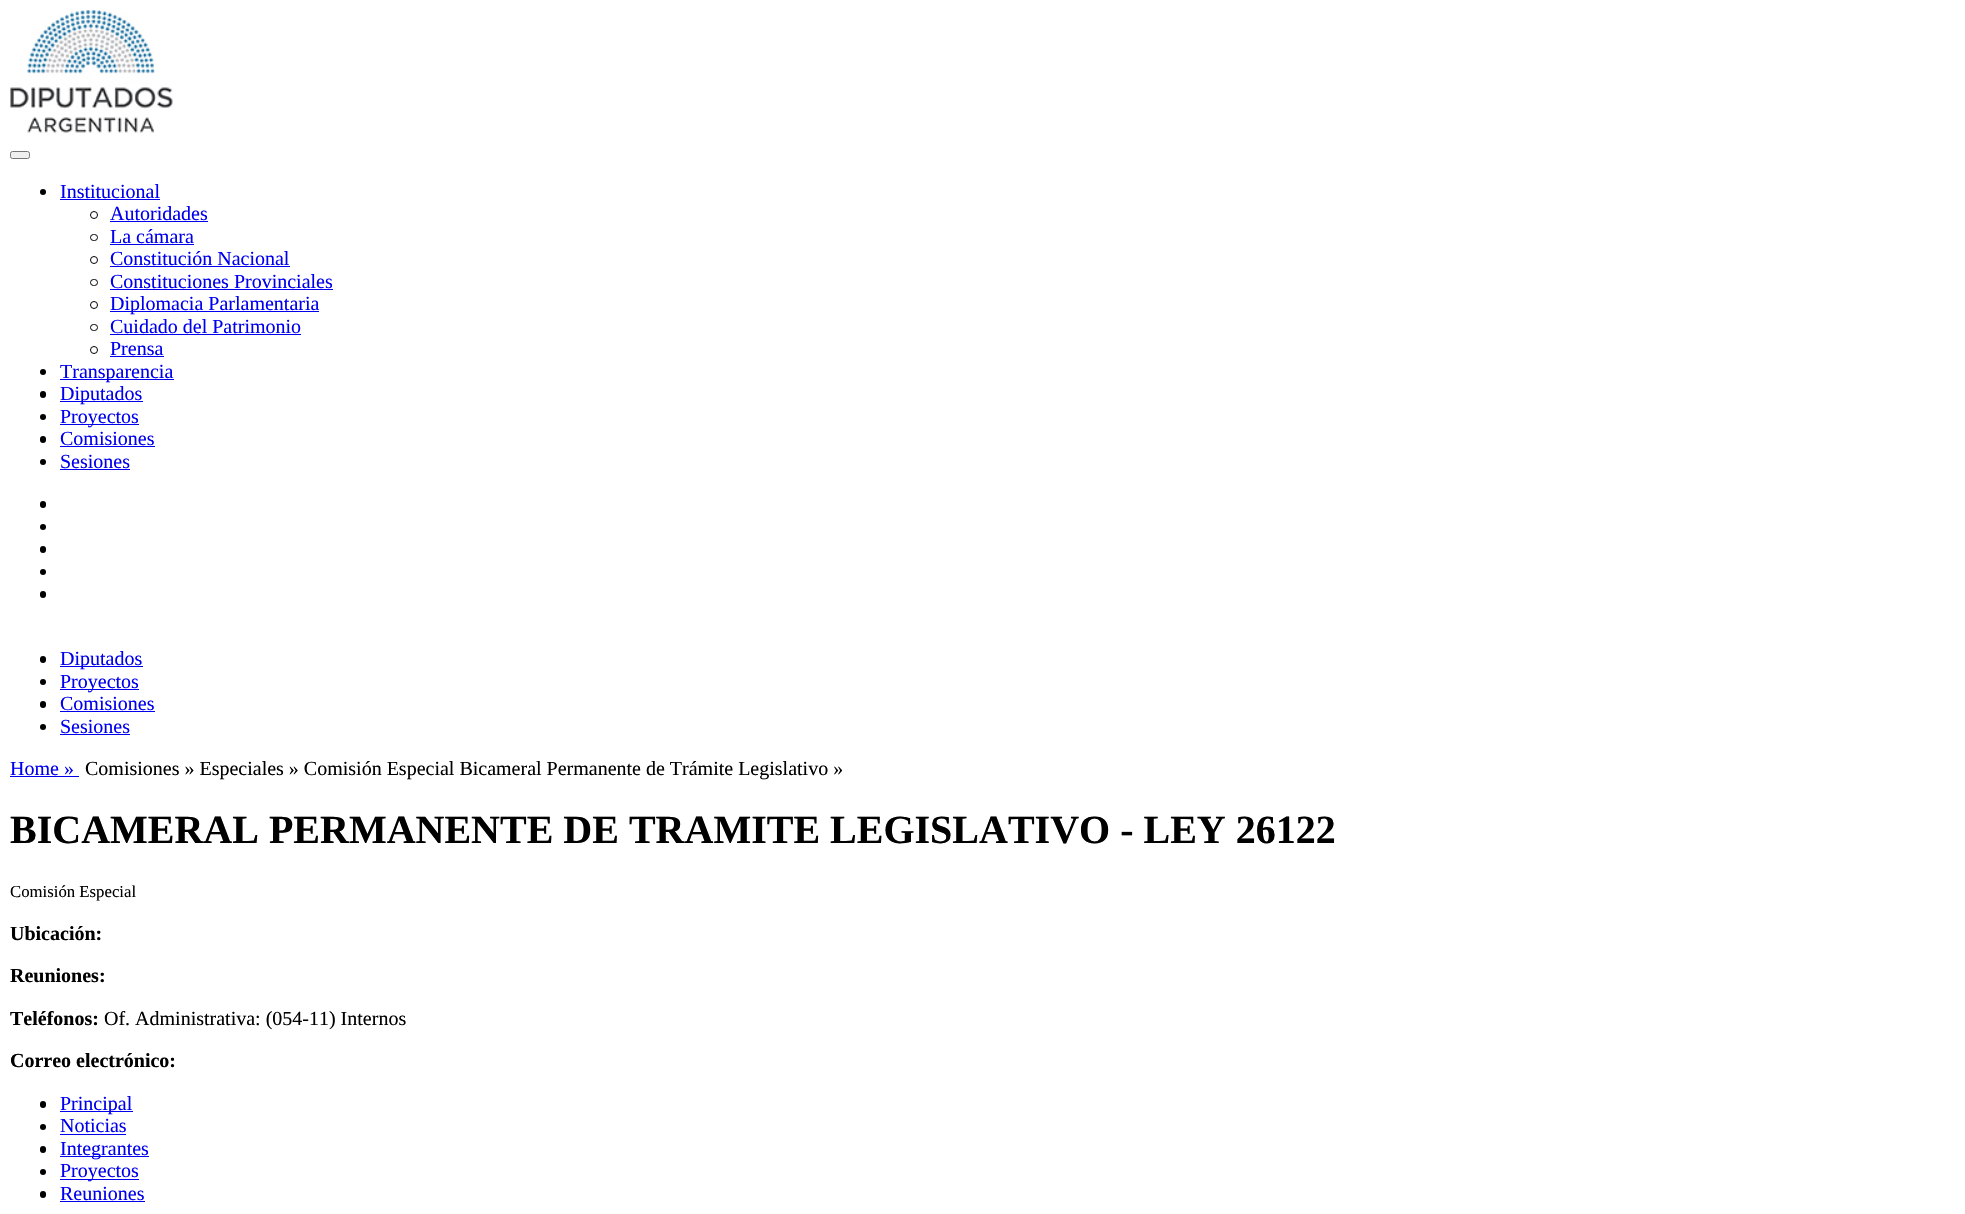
void draw(SkCanvas* canvas) {
    SkPaint paint;
    paint.setAntiAlias(true);
    canvas->clear(0xFFFFFFFF);
    canvas->drawImageRect(SkImages::DeferredFromEncodedData(SkData::MakeFromFileName("img1.png")), SkRect::MakeXYWH(10, 10, 163, 123), SkSamplingOptions());
    paint.setColor(0xFFEFEFEF);
    canvas->drawRoundRect(SkRect::MakeXYWH(10.5f, 151.5f, 19, 7), 2, 2, paint);
    paint.setStyle(SkPaint::kStroke_Style);
    paint.setStrokeWidth(1);
    paint.setColor(0xFF767676);
    canvas->drawRoundRect(SkRect::MakeXYWH(10.5f, 151.5f, 19, 7), 2, 2, paint);
    paint.setStyle(SkPaint::kFill_Style);
    paint.setColor(0xFF000000);
    canvas->drawCircle(43, 192, 3, paint);
    SkFont font1(fontMgr->matchFamilyStyle("Liberation Serif", SkFontStyle::Normal()), 20);
    font1.setSubpixel(true);
    paint.setColor(0xFF0000EE);
    canvas->drawString("Institucional", 60, 198, font1, paint);
    canvas->drawRect(SkRect::MakeXYWH(60, 199, 100, 1), paint);
    paint.setStyle(SkPaint::kStroke_Style);
    paint.setColor(0xFF000000);
    canvas->drawCircle(94, 215, 3.5f, paint);
    paint.setStyle(SkPaint::kFill_Style);
    paint.setColor(0xFF0000EE);
    canvas->drawString("Autoridades", 110, 220, font1, paint);
    canvas->drawRect(SkRect::MakeXYWH(110, 221, 98, 1), paint);
    paint.setStyle(SkPaint::kStroke_Style);
    paint.setColor(0xFF000000);
    canvas->drawRoundRect(SkRect::MakeXYWH(90.5f, 234.5f, 7, 6), 3, 3, paint);
    paint.setStyle(SkPaint::kFill_Style);
    paint.setColor(0xFF0000EE);
    canvas->drawString("La cámara", 110, 243, font1, paint);
    canvas->drawRect(SkRect::MakeXYWH(110, 244, 84, 1), paint);
    paint.setStyle(SkPaint::kStroke_Style);
    paint.setColor(0xFF000000);
    canvas->drawCircle(94, 260, 3.5f, paint);
    paint.setStyle(SkPaint::kFill_Style);
    paint.setColor(0xFF0000EE);
    canvas->drawString("Constitución Nacional", 110, 265, font1, paint);
    canvas->drawRect(SkRect::MakeXYWH(110, 266, 180, 1), paint);
    paint.setStyle(SkPaint::kStroke_Style);
    paint.setColor(0xFF000000);
    canvas->drawRoundRect(SkRect::MakeXYWH(90.5f, 279.5f, 7, 6), 3, 3, paint);
    paint.setStyle(SkPaint::kFill_Style);
    paint.setColor(0xFF0000EE);
    canvas->drawString("Constituciones Provinciales", 110, 288, font1, paint);
    canvas->drawRect(SkRect::MakeXYWH(110, 289, 223, 1), paint);
    paint.setStyle(SkPaint::kStroke_Style);
    paint.setColor(0xFF000000);
    canvas->drawCircle(94, 305, 3.5f, paint);
    paint.setStyle(SkPaint::kFill_Style);
    paint.setColor(0xFF0000EE);
    canvas->drawRect(SkRect::MakeXYWH(110, 311, 209, 1), paint);
    canvas->drawString("Diplomacia Parlamentaria", 110, 310, font1, paint);
    paint.setStyle(SkPaint::kStroke_Style);
    paint.setColor(0xFF000000);
    canvas->drawRoundRect(SkRect::MakeXYWH(90.5f, 324.5f, 7, 6), 3, 3, paint);
    paint.setStyle(SkPaint::kFill_Style);
    paint.setColor(0xFF0000EE);
    canvas->drawString("Cuidado del Patrimonio", 110, 333, font1, paint);
    canvas->drawRect(SkRect::MakeXYWH(110, 334, 191, 1), paint);
    paint.setStyle(SkPaint::kStroke_Style);
    paint.setColor(0xFF000000);
    canvas->drawCircle(94, 350, 3.5f, paint);
    paint.setStyle(SkPaint::kFill_Style);
    paint.setColor(0xFF0000EE);
    canvas->drawString("Prensa", 110, 355, font1, paint);
    canvas->drawRect(SkRect::MakeXYWH(110, 356, 54, 1), paint);
    paint.setColor(0xFF000000);
    canvas->drawCircle(43, 372, 3, paint);
    paint.setColor(0xFF0000EE);
    canvas->drawRect(SkRect::MakeXYWH(60, 379, 114, 1), paint);
    canvas->drawString("Transparencia", 60, 378, font1, paint);
    paint.setColor(0xFF000000);
    canvas->drawRoundRect(SkRect::MakeXYWH(40, 391, 6, 7), 3, 3, paint);
    paint.setColor(0xFF0000EE);
    canvas->drawRect(SkRect::MakeXYWH(60, 401, 83, 1), paint);
    canvas->drawString("Diputados", 60, 400, font1, paint);
    paint.setColor(0xFF000000);
    canvas->drawCircle(43, 417, 3, paint);
    paint.setColor(0xFF0000EE);
    canvas->drawRect(SkRect::MakeXYWH(60, 424, 79, 1), paint);
    canvas->drawString("Proyectos", 60, 423, font1, paint);
    paint.setColor(0xFF000000);
    canvas->drawRoundRect(SkRect::MakeXYWH(40, 436, 6, 7), 3, 3, paint);
    paint.setColor(0xFF0000EE);
    canvas->drawString("Comisiones", 60, 445, font1, paint);
    canvas->drawRect(SkRect::MakeXYWH(60, 446, 95, 1), paint);
    paint.setColor(0xFF000000);
    canvas->drawCircle(43, 462, 3, paint);
    paint.setColor(0xFF0000EE);
    canvas->drawString("Sesiones", 60, 468, font1, paint);
    canvas->drawRect(SkRect::MakeXYWH(60, 469, 70, 1), paint);
    paint.setColor(0xFF000000);
    canvas->drawRoundRect(SkRect::MakeXYWH(40, 501, 6, 7), 3, 3, paint);
    canvas->drawCircle(43, 527, 3, paint);
    canvas->drawRoundRect(SkRect::MakeXYWH(40, 546, 6, 7), 3, 3, paint);
    canvas->drawCircle(43, 572, 3, paint);
    canvas->drawRoundRect(SkRect::MakeXYWH(40, 591, 6, 7), 3, 3, paint);
    canvas->drawRoundRect(SkRect::MakeXYWH(40, 656, 6, 7), 3, 3, paint);
    paint.setColor(0xFF0000EE);
    canvas->drawRect(SkRect::MakeXYWH(60, 666, 83, 1), paint);
    canvas->drawString("Diputados", 60, 665, font1, paint);
    paint.setColor(0xFF000000);
    canvas->drawCircle(43, 682, 3, paint);
    paint.setColor(0xFF0000EE);
    canvas->drawRect(SkRect::MakeXYWH(60, 689, 79, 1), paint);
    canvas->drawString("Proyectos", 60, 688, font1, paint);
    paint.setColor(0xFF000000);
    canvas->drawRoundRect(SkRect::MakeXYWH(40, 701, 6, 7), 3, 3, paint);
    paint.setColor(0xFF0000EE);
    canvas->drawString("Comisiones", 60, 710, font1, paint);
    canvas->drawRect(SkRect::MakeXYWH(60, 711, 95, 1), paint);
    paint.setColor(0xFF000000);
    canvas->drawCircle(43, 727, 3, paint);
    paint.setColor(0xFF0000EE);
    canvas->drawString("Sesiones", 60, 733, font1, paint);
    canvas->drawRect(SkRect::MakeXYWH(60, 734, 70, 1), paint);
    canvas->drawString("Home »", 10, 775, font1, paint);
    canvas->drawRect(SkRect::MakeXYWH(10, 776, 69, 1), paint);
    paint.setColor(0xFF000000);
    canvas->drawString("Comisiones » Especiales » Comisión Especial Bicameral Permanente de Trámite Legislativo »", 85, 775, font1, paint);
    SkFont font2(fontMgr->matchFamilyStyle("Liberation Serif", SkFontStyle::Bold()), 40);
    font2.setSubpixel(true);
    canvas->drawString("BICAMERAL PERMANENTE DE TRAMITE LEGISLATIVO - LEY 26122", 10, 843, font2, paint);
    SkFont font3(fontMgr->matchFamilyStyle("Liberation Serif", SkFontStyle::Normal()), 16.75f);
    font3.setSubpixel(true);
    canvas->drawString("Comisión Especial", 10, 897, font3, paint);
    SkFont font4(fontMgr->matchFamilyStyle("Liberation Serif", SkFontStyle::Bold()), 20);
    font4.setSubpixel(true);
    canvas->drawString("Ubicación:", 10, 940, font4, paint);
    canvas->drawString("Reuniones:", 10, 982, font4, paint);
    canvas->drawString("Teléfonos:", 10, 1025, font4, paint);
    canvas->drawString("Of. Administrativa: (054-11) Internos", 104, 1025, font1, paint);
    canvas->drawString("Correo electrónico:", 10, 1067, font4, paint);
    canvas->drawRoundRect(SkRect::MakeXYWH(40, 1101, 6, 7), 3, 3, paint);
    paint.setColor(0xFF0000EE);
    canvas->drawRect(SkRect::MakeXYWH(60, 1111, 73, 1), paint);
    canvas->drawString("Principal", 60, 1110, font1, paint);
    paint.setColor(0xFF000000);
    canvas->drawCircle(43, 1127, 3, paint);
    paint.setColor(0xFF0000EE);
    canvas->drawString("Noticias", 60, 1132, font1, paint);
    canvas->drawRect(SkRect::MakeXYWH(60, 1134, 66, 1), paint);
    paint.setColor(0xFF000000);
    canvas->drawRoundRect(SkRect::MakeXYWH(40, 1146, 6, 7), 3, 3, paint);
    paint.setColor(0xFF0000EE);
    canvas->drawRect(SkRect::MakeXYWH(60, 1156, 89, 1), paint);
    canvas->drawString("Integrantes", 60, 1155, font1, paint);
    paint.setColor(0xFF000000);
    canvas->drawCircle(43, 1172, 3, paint);
    paint.setColor(0xFF0000EE);
    canvas->drawRect(SkRect::MakeXYWH(60, 1179, 79, 1), paint);
    canvas->drawString("Proyectos", 60, 1177, font1, paint);
    paint.setColor(0xFF000000);
    canvas->drawRoundRect(SkRect::MakeXYWH(40, 1191, 6, 7), 3, 3, paint);
    paint.setColor(0xFF0000EE);
    canvas->drawString("Reuniones", 60, 1200, font1, paint);
    canvas->drawRect(SkRect::MakeXYWH(60, 1201, 85, 1), paint);
}
